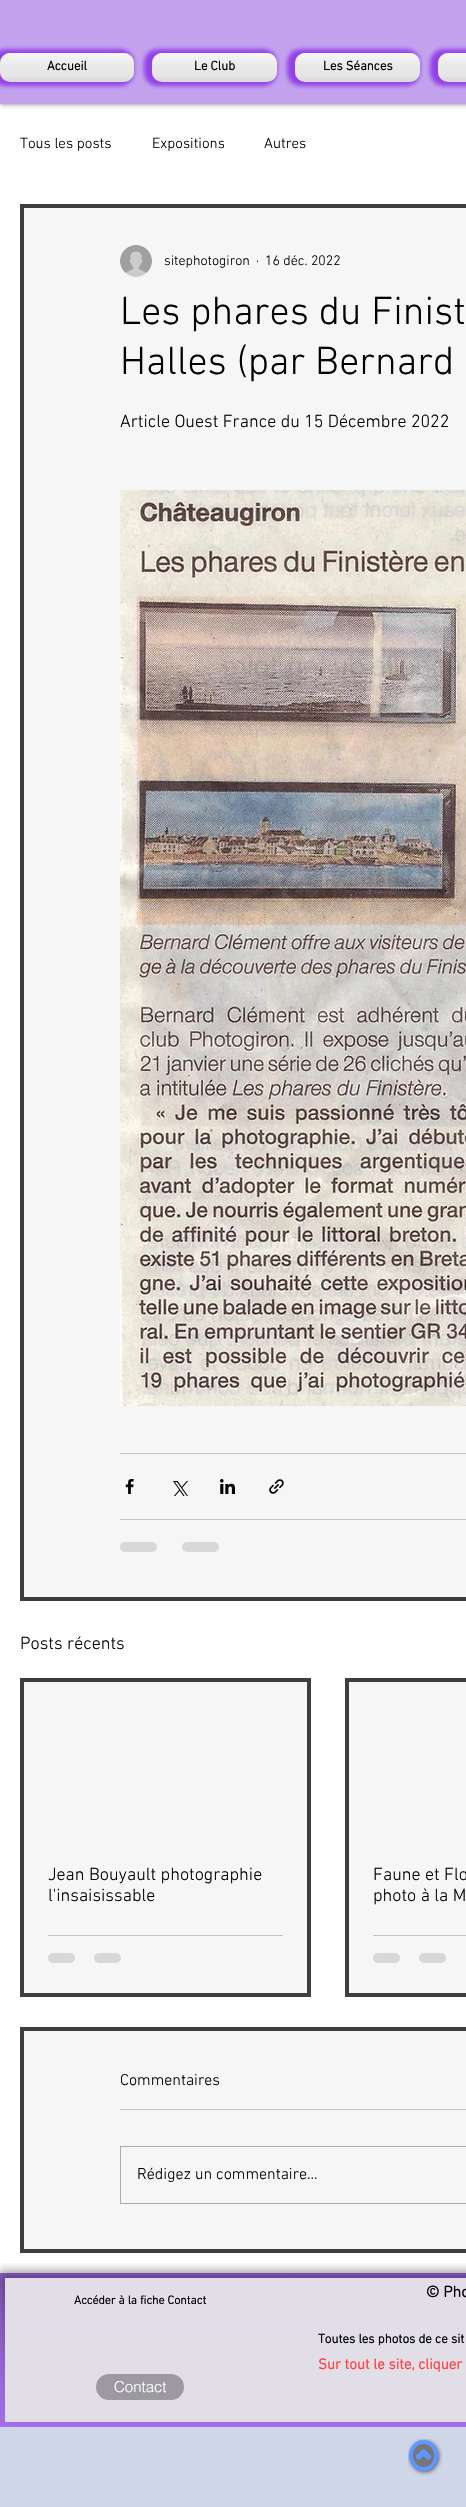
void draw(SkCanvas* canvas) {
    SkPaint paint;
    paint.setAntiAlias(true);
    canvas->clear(0xFFCFD6E8);
    paint.setColor(0xFFFFFFFF);
    canvas->drawRect(SkRect::MakeXYWH(0, 104, 466, 2169), paint);
    paint.setColor(0x80000000);
    paint.setMaskFilter(SkMaskFilter::MakeBlur(kNormal_SkBlurStyle, 2.5f));
    canvas->drawRect(SkRect::MakeXYWH(0, 0, 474, 104), paint);
    paint.setMaskFilter(nullptr);
    paint.setColor(0xFFC2A2ED);
    canvas->drawRect(SkRect::MakeXYWH(0, 0, 466, 104), paint);
    paint.setColor(0xB08015E8);
    paint.setMaskFilter(SkMaskFilter::MakeBlur(kNormal_SkBlurStyle, 2));
    canvas->drawRoundRect(SkRect::MakeXYWH(-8, 49, 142, 37), 14, 14, paint);
    paint.setMaskFilter(nullptr);
    paint.setColor(0xFFFFFFFF);
    canvas->drawRoundRect(SkRect::MakeXYWH(0, 53, 134, 29), 10, 10, paint);
    canvas->drawImageRect(SkImages::DeferredFromEncodedData(SkData::MakeFromFileName("img1.png")), SkRect::MakeXYWH(0, 53, 134, 23), SkSamplingOptions());
    canvas->drawImageRect(SkImages::DeferredFromEncodedData(SkData::MakeFromFileName("img2.png")), SkRect::MakeXYWH(0, 53, 134, 29), SkSamplingOptions());
    SkFont font1(fontMgr->matchFamilyStyle("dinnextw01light", SkFontStyle::Bold()), 13);
    font1.setSubpixel(true);
    paint.setColor(0xFF000000);
    canvas->drawString("Accueil", 47, 70, font1, paint);
    paint.setColor(0xB08015E8);
    paint.setMaskFilter(SkMaskFilter::MakeBlur(kNormal_SkBlurStyle, 2));
    canvas->drawRoundRect(SkRect::MakeXYWH(144, 49, 133, 37), 14, 14, paint);
    paint.setMaskFilter(nullptr);
    paint.setColor(0xFFFFFFFF);
    canvas->drawRoundRect(SkRect::MakeXYWH(152, 53, 125, 29), 10, 10, paint);
    canvas->drawImageRect(SkImages::DeferredFromEncodedData(SkData::MakeFromFileName("img3.png")), SkRect::MakeXYWH(152, 53, 125, 23), SkSamplingOptions());
    canvas->drawImageRect(SkImages::DeferredFromEncodedData(SkData::MakeFromFileName("img4.png")), SkRect::MakeXYWH(152, 53, 125, 29), SkSamplingOptions());
    paint.setColor(0xFF000000);
    canvas->drawString("Le Club", 194, 70, font1, paint);
    paint.setColor(0xB08015E8);
    paint.setMaskFilter(SkMaskFilter::MakeBlur(kNormal_SkBlurStyle, 2));
    canvas->drawRoundRect(SkRect::MakeXYWH(287, 49, 133, 37), 14, 14, paint);
    paint.setMaskFilter(nullptr);
    paint.setColor(0xFFFFFFFF);
    canvas->drawRoundRect(SkRect::MakeXYWH(295, 53, 125, 29), 10, 10, paint);
    canvas->drawImageRect(SkImages::DeferredFromEncodedData(SkData::MakeFromFileName("img3.png")), SkRect::MakeXYWH(295, 53, 125, 23), SkSamplingOptions());
    canvas->drawImageRect(SkImages::DeferredFromEncodedData(SkData::MakeFromFileName("img4.png")), SkRect::MakeXYWH(295, 53, 125, 29), SkSamplingOptions());
    paint.setColor(0xFF000000);
    canvas->drawString("Les Séances", 323, 70, font1, paint);
    paint.setColor(0xB08015E8);
    paint.setMaskFilter(SkMaskFilter::MakeBlur(kNormal_SkBlurStyle, 2));
    canvas->drawRoundRect(SkRect::MakeXYWH(430, 49, 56, 37), 14, 14, paint);
    paint.setMaskFilter(nullptr);
    paint.setColor(0xFFFFFFFF);
    canvas->drawRoundRect(SkRect::MakeXYWH(438, 53, 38, 29), 10, 10, paint);
    canvas->drawImageRect(SkImages::DeferredFromEncodedData(SkData::MakeFromFileName("img5.png")), SkRect::MakeXYWH(438, 53, 9, 23), SkSamplingOptions());
    canvas->drawImageRect(SkImages::DeferredFromEncodedData(SkData::MakeFromFileName("img6.png")), SkRect::MakeXYWH(438, 53, 28, 29), SkSamplingOptions());
    SkFont font2(fontMgr->matchFamilyStyle("dinnextw01light", SkFontStyle(300, SkFontStyle::kNormal_Width, SkFontStyle::kUpright_Slant)), 15);
    font2.setSubpixel(true);
    paint.setColor(0xFF000000);
    canvas->drawString("Tous les posts", 20, 148, font2, paint);
    canvas->drawString("Expositions", 152, 148, font2, paint);
    canvas->drawString("Autres", 264, 148, font2, paint);
    paint.setColor(0xFFF7F6F6);
    canvas->drawRect(SkRect::MakeXYWH(22, 206, 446, 1393), paint);
    paint.setStyle(SkPaint::kStroke_Style);
    paint.setStrokeWidth(4);
    paint.setColor(0xFF3E3E3E);
    canvas->drawRect(SkRect::MakeXYWH(22, 206, 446, 1393), paint);
    canvas->drawImageRect(SkImages::DeferredFromEncodedData(SkData::MakeFromFileName("img7.png")), SkRect::MakeXYWH(120, 245, 32, 32), SkSamplingOptions());
    SkFont font3(fontMgr->matchFamilyStyle("dinnextw01light", SkFontStyle(300, SkFontStyle::kNormal_Width, SkFontStyle::kUpright_Slant)), 14);
    font3.setSubpixel(true);
    paint.setStyle(SkPaint::kFill_Style);
    paint.setColor(0xFF000000);
    canvas->drawString("sitephotogiron", 164, 265, font3, paint);
    canvas->drawString("·", 256, 265, font3, paint);
    canvas->drawString("16 déc. 2022", 265, 265, font3, paint);
    SkFont font4(fontMgr->matchFamilyStyle("dinnextw01light", SkFontStyle(300, SkFontStyle::kNormal_Width, SkFontStyle::kUpright_Slant)), 40);
    font4.setSubpixel(true);
    canvas->drawString("Les phares du Finist", 120, 324, font4, paint);
    canvas->drawString("Halles (par Bernard", 120, 374, font4, paint);
    SkFont font5(fontMgr->matchFamilyStyle("dinnextw01light", SkFontStyle(300, SkFontStyle::kNormal_Width, SkFontStyle::kUpright_Slant)), 18);
    font5.setSubpixel(true);
    canvas->drawString("Article Ouest France du 15 Décembre 2022", 120, 427, font5, paint);
    canvas->drawImageRect(SkImages::DeferredFromEncodedData(SkData::MakeFromFileName("img8.png")), SkRect::MakeXYWH(120, 490, 346, 916), SkSamplingOptions());
    paint.setColor(0xFFC6C5C5);
    canvas->drawRect(SkRect::MakeXYWH(120, 1453, 346, 1), paint);
    canvas->drawImageRect(SkImages::DeferredFromEncodedData(SkData::MakeFromFileName("img9.png")), SkRect::MakeXYWH(125, 1479, 9, 15), SkSamplingOptions());
    canvas->drawImageRect(SkImages::DeferredFromEncodedData(SkData::MakeFromFileName("img10.png")), SkRect::MakeXYWH(173, 1481, 15, 15), SkSamplingOptions());
    canvas->drawImageRect(SkImages::DeferredFromEncodedData(SkData::MakeFromFileName("img11.png")), SkRect::MakeXYWH(220, 1479, 15, 15), SkSamplingOptions());
    canvas->drawImageRect(SkImages::DeferredFromEncodedData(SkData::MakeFromFileName("img12.png")), SkRect::MakeXYWH(269, 1479, 15, 15), SkSamplingOptions());
    canvas->drawRect(SkRect::MakeXYWH(120, 1519, 346, 1), paint);
    paint.setColor(0xFFD9D8D8);
    canvas->drawRoundRect(SkRect::MakeXYWH(120, 1542, 37, 10), 5, 5, paint);
    canvas->drawRoundRect(SkRect::MakeXYWH(182, 1542, 37, 10), 5, 5, paint);
    paint.setColor(0xFF000000);
    canvas->drawString("Posts récents", 20, 1649, font5, paint);
    paint.setColor(0xFFF7F6F6);
    canvas->drawRect(SkRect::MakeXYWH(22, 1680, 287, 315), paint);
    paint.setStyle(SkPaint::kStroke_Style);
    paint.setColor(0xFF3E3E3E);
    canvas->drawRect(SkRect::MakeXYWH(22, 1680, 287, 315), paint);
    paint.setStyle(SkPaint::kFill_Style);
    paint.setColor(0xFF000000);
    canvas->drawString("Jean Bouyault photographie", 48, 1880, font5, paint);
    canvas->drawString("l'insaisissable", 48, 1901, font5, paint);
    paint.setColor(0xFFC6C5C5);
    canvas->drawRect(SkRect::MakeXYWH(48, 1935, 235, 1), paint);
    paint.setColor(0xFFD9D8D8);
    canvas->drawRoundRect(SkRect::MakeXYWH(48, 1953, 27, 10), 5, 5, paint);
    canvas->drawRoundRect(SkRect::MakeXYWH(94, 1953, 27, 10), 5, 5, paint);
    paint.setColor(0xFFF6F6F6);
    canvas->drawRect(SkRect::MakeXYWH(347, 1680, 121, 315), paint);
    paint.setStyle(SkPaint::kStroke_Style);
    paint.setColor(0xFF3E3E3E);
    canvas->drawRect(SkRect::MakeXYWH(347, 1680, 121, 315), paint);
    paint.setStyle(SkPaint::kFill_Style);
    paint.setColor(0xFF000000);
    canvas->drawString("Faune et Flo", 373, 1880, font5, paint);
    canvas->drawString("photo à la M", 373, 1901, font5, paint);
    paint.setColor(0xFFC5C5C5);
    canvas->drawRect(SkRect::MakeXYWH(373, 1935, 93, 1), paint);
    paint.setColor(0xFFD8D8D8);
    canvas->drawRoundRect(SkRect::MakeXYWH(373, 1953, 27, 10), 5, 5, paint);
    canvas->drawRoundRect(SkRect::MakeXYWH(419, 1953, 27, 10), 5, 5, paint);
    paint.setColor(0xFFF7F6F6);
    canvas->drawRect(SkRect::MakeXYWH(22, 2029, 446, 222), paint);
    paint.setStyle(SkPaint::kStroke_Style);
    paint.setColor(0xFF3E3E3E);
    canvas->drawRect(SkRect::MakeXYWH(22, 2029, 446, 222), paint);
    SkFont font6(fontMgr->matchFamilyStyle("dinnextw01light", SkFontStyle(300, SkFontStyle::kNormal_Width, SkFontStyle::kUpright_Slant)), 16);
    font6.setSubpixel(true);
    paint.setStyle(SkPaint::kFill_Style);
    paint.setColor(0xFF000000);
    canvas->drawString("Commentaires", 120, 2085, font6, paint);
    paint.setColor(0xFFC6C5C5);
    canvas->drawRect(SkRect::MakeXYWH(120, 2109, 346, 1), paint);
    paint.setStyle(SkPaint::kStroke_Style);
    paint.setStrokeWidth(1);
    paint.setColor(0xFFADACAC);
    canvas->drawRect(SkRect::MakeXYWH(120.5f, 2146.5f, 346, 57), paint);
    paint.setStyle(SkPaint::kFill_Style);
    paint.setColor(0xFF000000);
    canvas->drawString("Rédigez un commentaire...", 137, 2179, font6, paint);
    paint.setColor(0xFFA46EE8);
    canvas->drawRect(SkRect::MakeXYWH(0, 2273, 466, 154), paint);
    canvas->drawImageRect(SkImages::DeferredFromEncodedData(SkData::MakeFromFileName("img13.png")), SkRect::MakeXYWH(0, 2263, 35, 160), SkSamplingOptions());
    canvas->drawImageRect(SkImages::DeferredFromEncodedData(SkData::MakeFromFileName("img14.png")), SkRect::MakeXYWH(35, 2263, 431, 160), SkSamplingOptions());
    paint.setColor(0xFCE3DFE8);
    canvas->drawRect(SkRect::MakeXYWH(5, 2278, 461, 144), paint);
    SkFont font7(fontMgr->matchFamilyStyle("dinnextw01light", SkFontStyle::Bold()), 16);
    font7.setSubpixel(true);
    paint.setColor(0xFF000000);
    canvas->drawString("© Pho", 426, 2297, font7, paint);
    SkFont font8(fontMgr->matchFamilyStyle("dinnextw01light", SkFontStyle::Bold()), 12);
    font8.setSubpixel(true);
    canvas->drawString("Accéder à la fiche Contact", 74, 2304, font8, paint);
    canvas->drawString("Toutes les photos de ce sit", 318, 2343, font1, paint);
    SkFont font9(fontMgr->matchFamilyStyle("dinnextw01light", SkFontStyle::Bold()), 15);
    font9.setSubpixel(true);
    paint.setColor(0xFFFF4040);
    canvas->drawString("Sur tout le site, cliquer", 318, 2369, font9, paint);
    paint.setColor(0xFF9C99A0);
    canvas->drawRoundRect(SkRect::MakeXYWH(96, 2374, 88, 26), 13, 13, paint);
    SkFont font10(fontMgr->matchFamilyStyle("helvetica", SkFontStyle(300, SkFontStyle::kNormal_Width, SkFontStyle::kUpright_Slant)), 15);
    font10.setSubpixel(true);
    paint.setColor(0xFFFFFFFF);
    canvas->drawString("Contact", 114, 2392, font10, paint);
    canvas->drawImageRect(SkImages::DeferredFromEncodedData(SkData::MakeFromFileName("img15.png")), SkRect::MakeXYWH(408, 2439, 35, 37), SkSamplingOptions());
}
